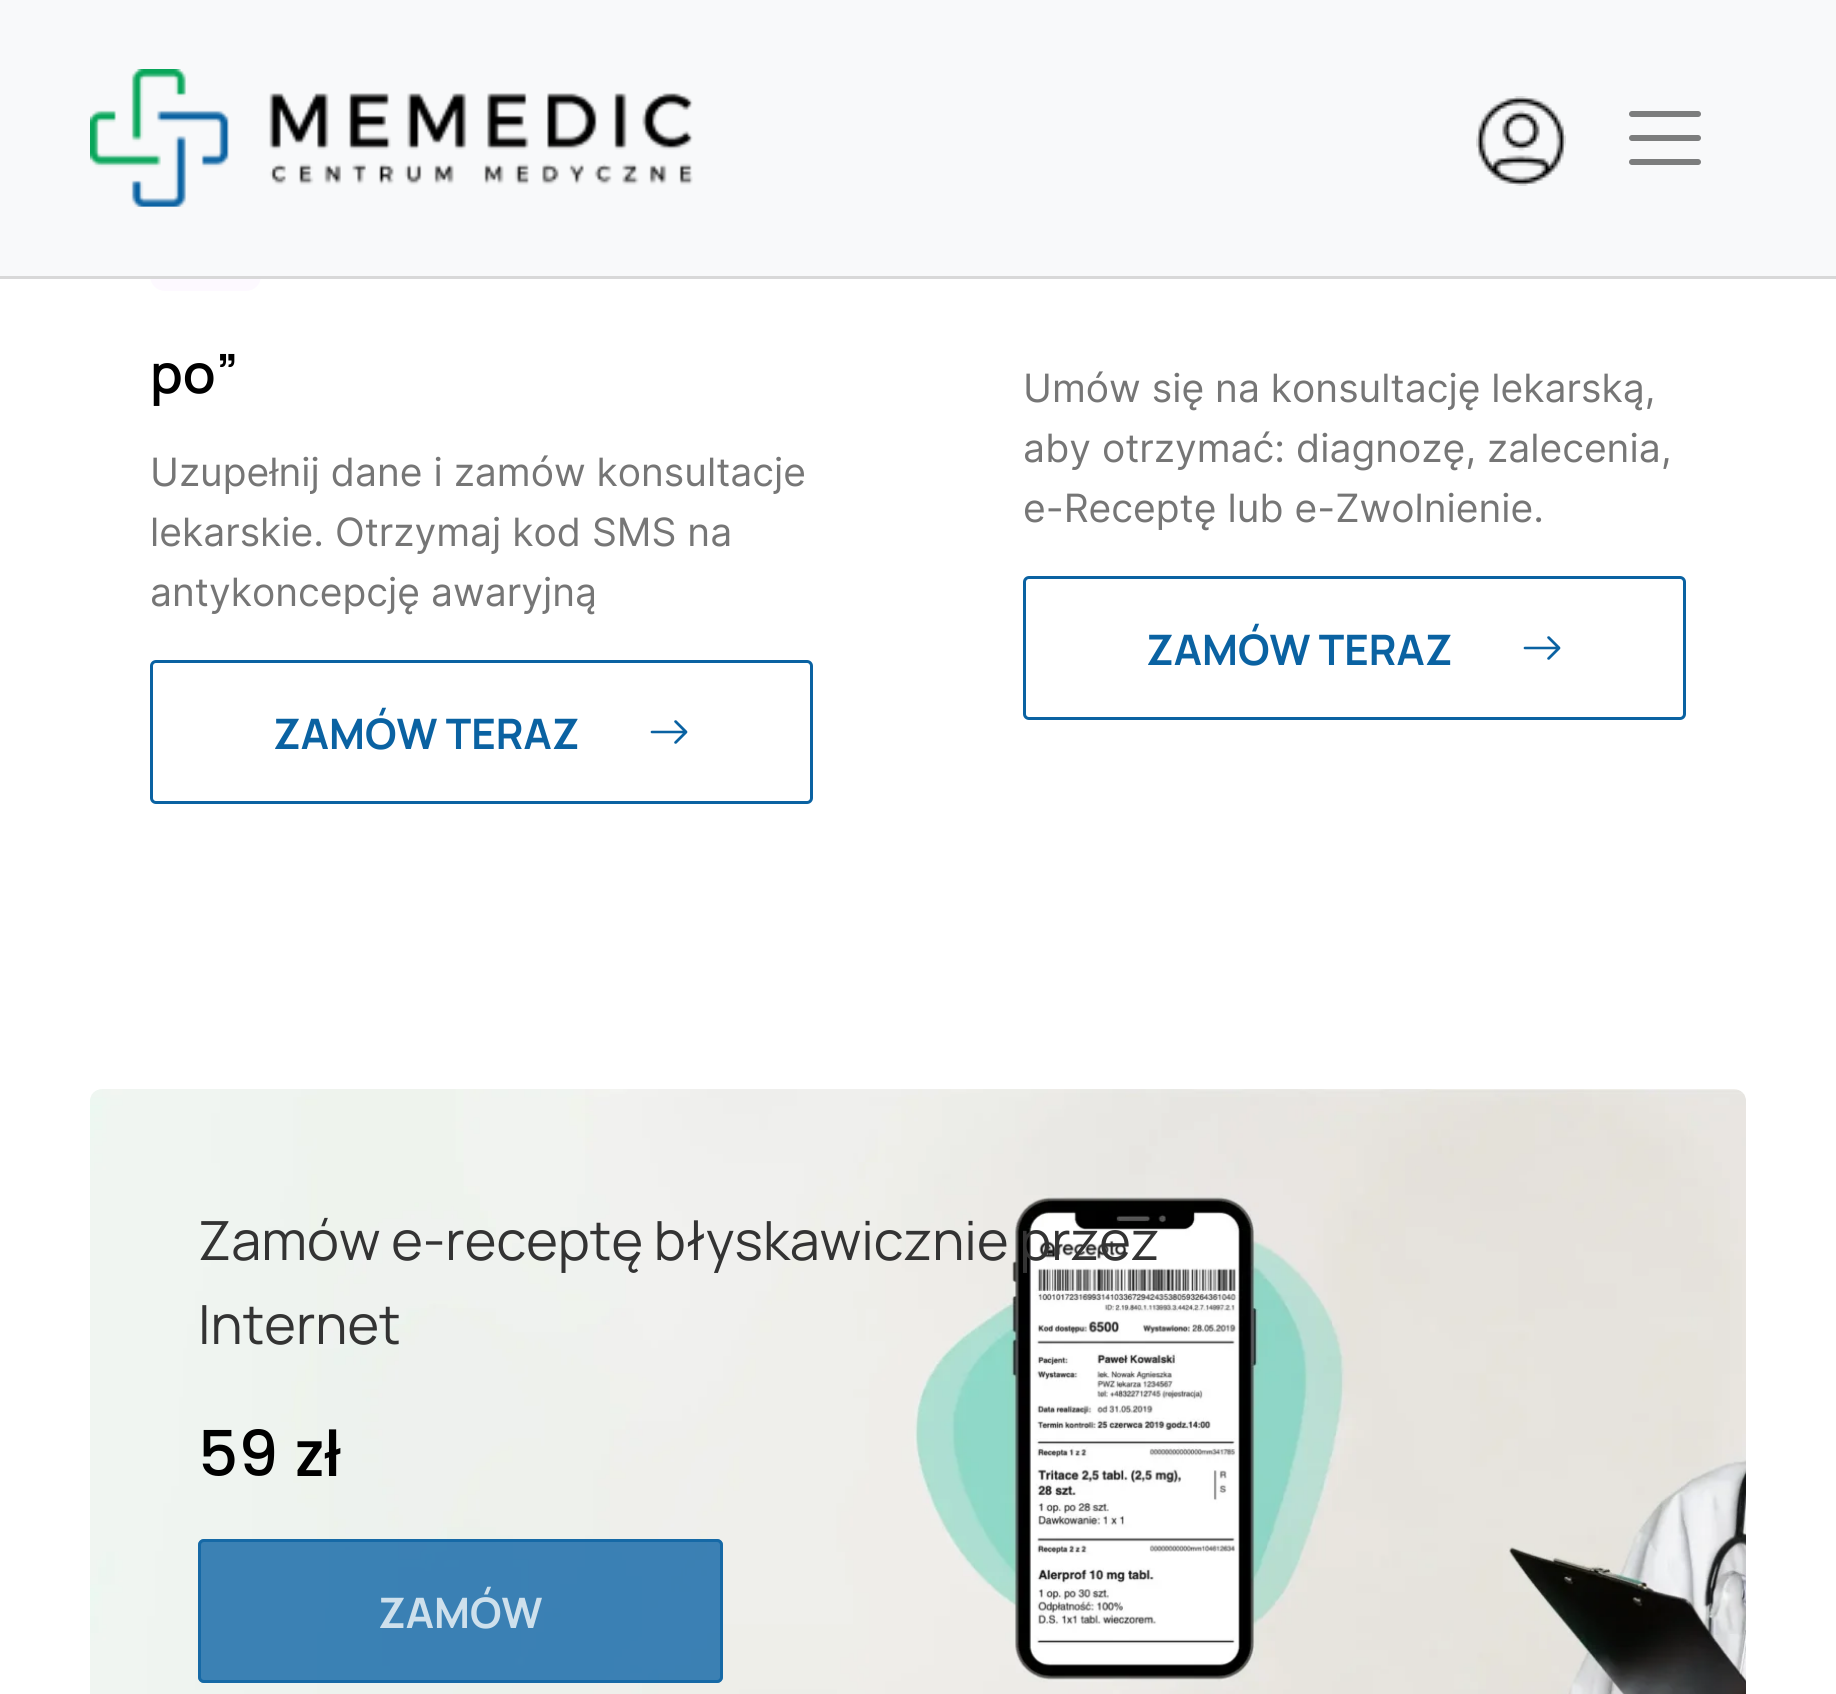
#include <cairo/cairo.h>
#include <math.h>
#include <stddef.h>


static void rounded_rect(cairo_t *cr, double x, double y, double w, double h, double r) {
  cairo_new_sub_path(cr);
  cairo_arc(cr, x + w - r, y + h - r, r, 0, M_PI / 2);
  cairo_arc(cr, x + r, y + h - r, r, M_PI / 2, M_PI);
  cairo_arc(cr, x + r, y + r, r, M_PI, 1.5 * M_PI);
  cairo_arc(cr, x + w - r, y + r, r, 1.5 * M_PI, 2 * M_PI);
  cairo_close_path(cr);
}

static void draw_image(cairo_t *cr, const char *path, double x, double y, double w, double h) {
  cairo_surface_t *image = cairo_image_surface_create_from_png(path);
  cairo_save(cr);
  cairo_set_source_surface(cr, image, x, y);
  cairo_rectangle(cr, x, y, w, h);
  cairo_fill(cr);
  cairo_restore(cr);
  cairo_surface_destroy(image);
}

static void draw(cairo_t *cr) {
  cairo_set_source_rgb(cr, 1, 1, 1);
  cairo_paint(cr);
  cairo_set_source_rgb(cr, 253 / 255.0, 249 / 255.0, 1);
  rounded_rect(cr, 150, 180, 111, 111, 15);
  cairo_fill(cr);
  cairo_set_source_rgb(cr, 248 / 255.0, 249 / 255.0, 250 / 255.0);
  cairo_rectangle(cr, 0, 0, 1836, 276);
  cairo_fill(cr);
  cairo_set_source_rgb(cr, 216 / 255.0, 216 / 255.0, 216 / 255.0);
  cairo_rectangle(cr, 0, 276, 1836, 3);
  cairo_fill(cr);
  draw_image(cr, "images/1.png", 90, 69, 603, 138);
  draw_image(cr, "images/2.png", 1476, 96, 90, 90);
  cairo_new_path(cr);
  cairo_move_to(cr, 1632, 114);
  cairo_line_to(cr, 1698, 114);
  cairo_move_to(cr, 1632, 138);
  cairo_line_to(cr, 1698, 138);
  cairo_move_to(cr, 1632, 162);
  cairo_line_to(cr, 1698, 162);
  cairo_set_source_rgb(cr, 124 / 255.0, 125 / 255.0, 125 / 255.0);
  cairo_set_line_width(cr, 6);
  cairo_set_line_cap(cr, CAIRO_LINE_CAP_ROUND);
  cairo_stroke(cr);
  rounded_rect(cr, 151.5, 661.5, 660, 141, 4.5);
  cairo_set_source_rgb(cr, 10 / 255.0, 98 / 255.0, 162 / 255.0);
  cairo_set_line_width(cr, 3);
  cairo_set_line_cap(cr, CAIRO_LINE_CAP_BUTT);
  cairo_stroke(cr);
  draw_image(cr, "images/3.png", 650, 720, 38, 24);
  rounded_rect(cr, 1024.5, 577.5, 660, 141, 4.5);
  cairo_stroke(cr);
  draw_image(cr, "images/3.png", 1523, 636, 38, 24);
  draw_image(cr, "images/4.png", 90, 1089, 1656, 605);
  cairo_set_source_rgba(cr, 12 / 255.0, 122 / 255.0, 202 / 255.0, 0.75);
  rounded_rect(cr, 198, 1539, 525, 144, 6);
  cairo_fill(cr);
  cairo_set_source_rgba(cr, 0, 0, 0, 0.15);
  rounded_rect(cr, 198, 1539, 525, 144, 6);
  cairo_fill(cr);
  rounded_rect(cr, 199.5, 1540.5, 522, 141, 4.5);
  cairo_set_source_rgba(cr, 10 / 255.0, 98 / 255.0, 162 / 255.0, 0.75);
  cairo_stroke(cr);
  cairo_select_font_face(cr, "Manrope SemiBold", CAIRO_FONT_SLANT_NORMAL, CAIRO_FONT_WEIGHT_NORMAL);
  cairo_set_font_size(cr, 54);
  cairo_set_source_rgb(cr, 0, 0, 0);
  cairo_move_to(cr, 150, 393);
  cairo_show_text(cr, "po”");
  cairo_select_font_face(cr, "Inter", CAIRO_FONT_SLANT_NORMAL, CAIRO_FONT_WEIGHT_NORMAL);
  cairo_set_font_size(cr, 39);
  cairo_set_source_rgb(cr, 118 / 255.0, 118 / 255.0, 118 / 255.0);
  cairo_move_to(cr, 150, 486);
  cairo_show_text(cr, "Uzupełnij dane i zamów konsultacje");
  cairo_move_to(cr, 150, 546);
  cairo_show_text(cr, "lekarskie. Otrzymaj kod SMS na");
  cairo_move_to(cr, 150, 606);
  cairo_show_text(cr, "antykoncepcję awaryjną");
  cairo_select_font_face(cr, "Manrope", CAIRO_FONT_SLANT_NORMAL, CAIRO_FONT_WEIGHT_BOLD);
  cairo_set_font_size(cr, 42);
  cairo_set_source_rgb(cr, 10 / 255.0, 98 / 255.0, 162 / 255.0);
  cairo_move_to(cr, 273, 749);
  cairo_show_text(cr, "ZAMÓW TERAZ");
  cairo_select_font_face(cr, "Inter", CAIRO_FONT_SLANT_NORMAL, CAIRO_FONT_WEIGHT_NORMAL);
  cairo_set_font_size(cr, 39);
  cairo_set_source_rgb(cr, 118 / 255.0, 118 / 255.0, 118 / 255.0);
  cairo_move_to(cr, 1023, 402);
  cairo_show_text(cr, "Umów się na konsultację lekarską,");
  cairo_move_to(cr, 1023, 462);
  cairo_show_text(cr, "aby otrzymać: diagnozę, zalecenia,");
  cairo_move_to(cr, 1023, 522);
  cairo_show_text(cr, "e-Receptę lub e-Zwolnienie.");
  cairo_select_font_face(cr, "Manrope", CAIRO_FONT_SLANT_NORMAL, CAIRO_FONT_WEIGHT_BOLD);
  cairo_set_font_size(cr, 42);
  cairo_set_source_rgb(cr, 10 / 255.0, 98 / 255.0, 162 / 255.0);
  cairo_move_to(cr, 1146, 665);
  cairo_show_text(cr, "ZAMÓW TERAZ");
  cairo_select_font_face(cr, "Manrope", CAIRO_FONT_SLANT_NORMAL, CAIRO_FONT_WEIGHT_NORMAL);
  cairo_set_font_size(cr, 54);
  cairo_set_source_rgb(cr, 51 / 255.0, 51 / 255.0, 51 / 255.0);
  cairo_move_to(cr, 198, 1260);
  cairo_show_text(cr, "Zamów e-receptę błyskawicznie przez");
  cairo_move_to(cr, 198, 1344);
  cairo_show_text(cr, "Internet");
  cairo_select_font_face(cr, "Poppins Medium", CAIRO_FONT_SLANT_NORMAL, CAIRO_FONT_WEIGHT_NORMAL);
  cairo_set_font_size(cr, 63);
  cairo_set_source_rgb(cr, 0, 0, 0);
  cairo_move_to(cr, 198, 1476);
  cairo_show_text(cr, "59 zł");
  cairo_select_font_face(cr, "Manrope", CAIRO_FONT_SLANT_NORMAL, CAIRO_FONT_WEIGHT_BOLD);
  cairo_set_font_size(cr, 42);
  cairo_set_source_rgb(cr, 206 / 255.0, 224 / 255.0, 236 / 255.0);
  cairo_move_to(cr, 378, 1628);
  cairo_show_text(cr, "ZAMÓW");
}

int main(void) {
  cairo_surface_t *surface = cairo_image_surface_create(CAIRO_FORMAT_RGB24, 1836, 1694);
  cairo_t *cr = cairo_create(surface);
  cairo_font_options_t *options = cairo_font_options_create();
  cairo_font_options_set_hint_metrics(options, CAIRO_HINT_METRICS_OFF);
  cairo_font_options_set_hint_style(options, CAIRO_HINT_STYLE_NONE);
  cairo_set_font_options(cr, options);
  cairo_set_miter_limit(cr, 4);
  draw(cr);
  cairo_surface_write_to_png(surface, "out.png");
  cairo_font_options_destroy(options);
  cairo_destroy(cr);
  cairo_surface_destroy(surface);
  return 0;
}
